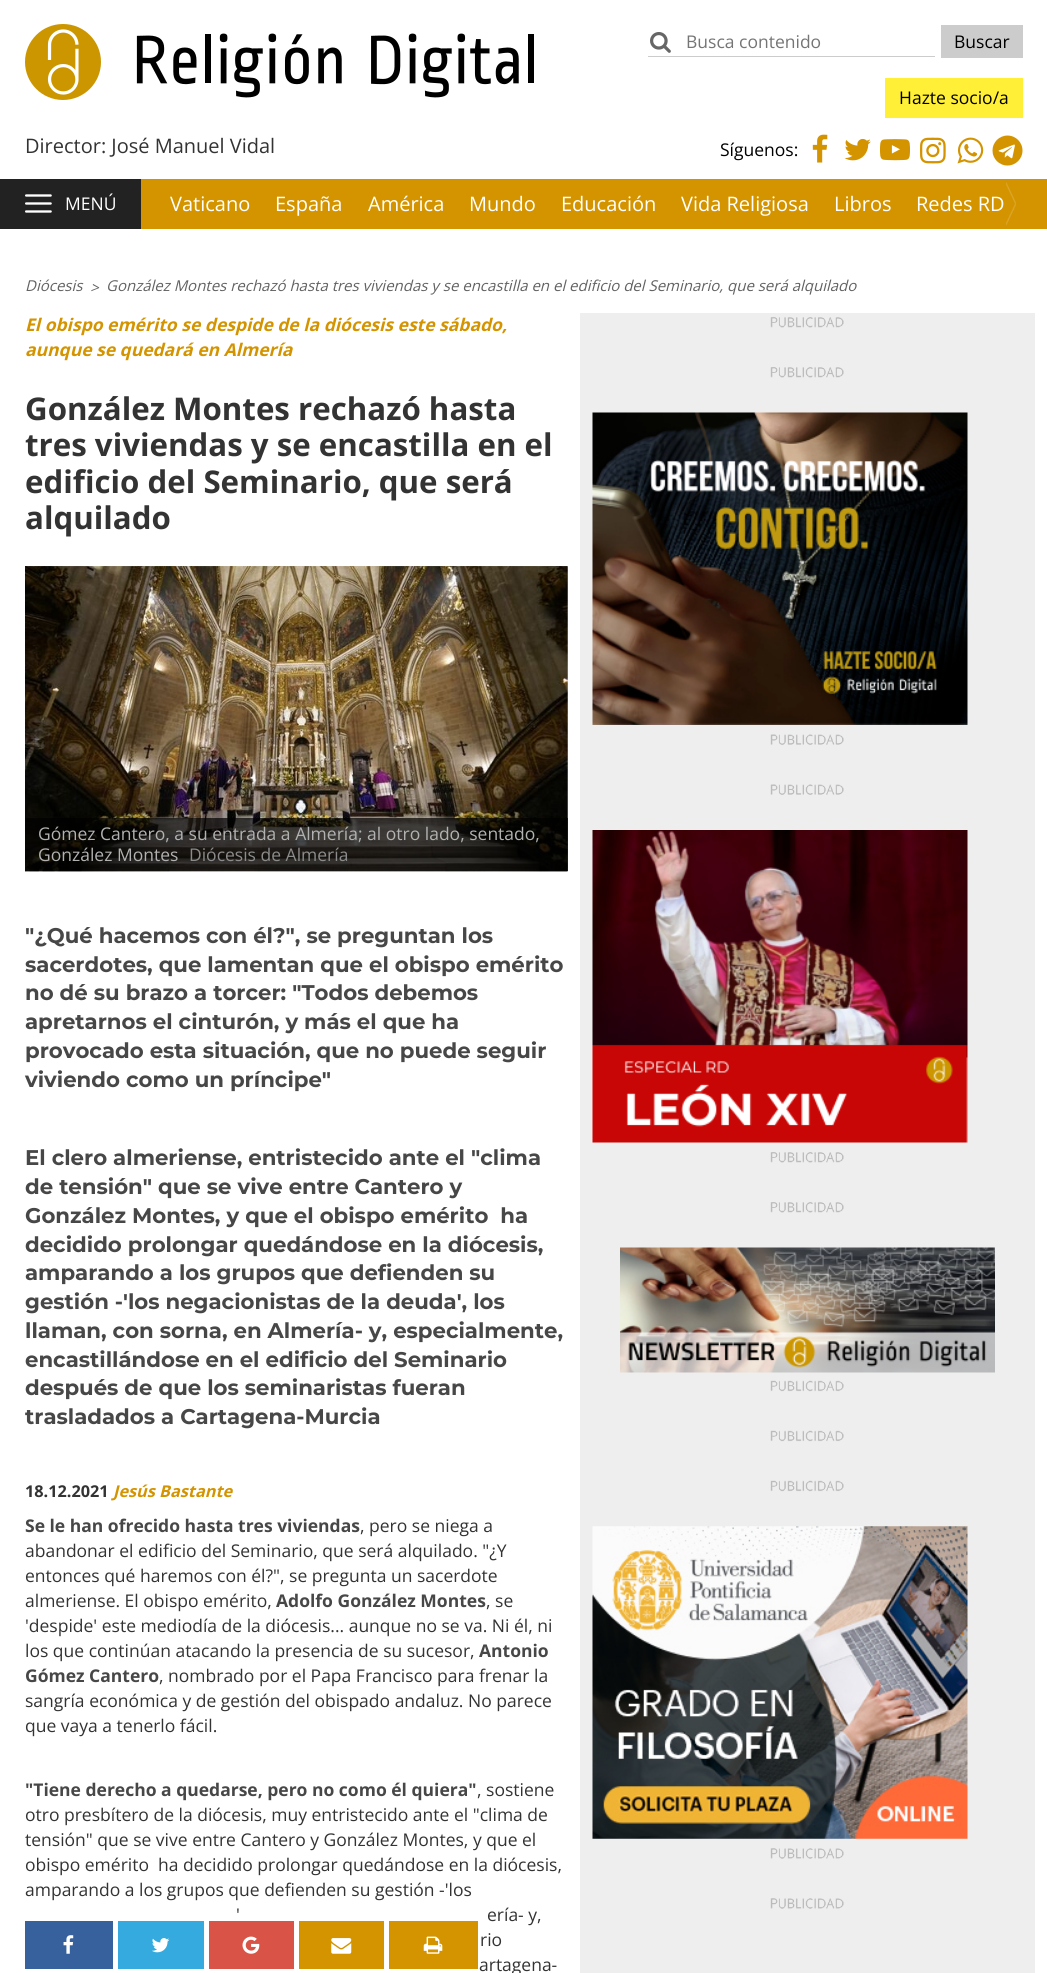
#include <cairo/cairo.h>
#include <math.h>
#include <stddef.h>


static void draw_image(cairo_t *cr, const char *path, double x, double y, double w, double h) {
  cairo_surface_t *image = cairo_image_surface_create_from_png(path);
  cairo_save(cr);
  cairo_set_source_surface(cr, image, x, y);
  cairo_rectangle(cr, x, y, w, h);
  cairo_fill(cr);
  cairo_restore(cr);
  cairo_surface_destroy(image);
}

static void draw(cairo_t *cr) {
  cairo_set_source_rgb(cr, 1, 1, 1);
  cairo_paint(cr);
  draw_image(cr, "images/1.png", 25, 24, 509, 76);
  draw_image(cr, "images/2.png", 650, 32, 21, 21);
  cairo_set_source_rgb(cr, 204 / 255.0, 204 / 255.0, 204 / 255.0);
  cairo_rectangle(cr, 648, 56, 287, 1);
  cairo_fill(cr);
  cairo_rectangle(cr, 941, 25, 82, 33);
  cairo_fill(cr);
  cairo_set_source_rgb(cr, 1, 239 / 255.0, 54 / 255.0);
  cairo_rectangle(cr, 885, 78, 138, 40);
  cairo_fill(cr);
  draw_image(cr, "images/3.png", 812, 134, 16, 29);
  draw_image(cr, "images/4.png", 844, 138, 27, 23);
  draw_image(cr, "images/5.png", 880, 139, 30, 22);
  draw_image(cr, "images/6.png", 920, 137, 26, 27);
  draw_image(cr, "images/7.png", 957, 137, 27, 27);
  draw_image(cr, "images/8.png", 992, 135, 31, 31);
  cairo_set_source_rgb(cr, 34 / 255.0, 34 / 255.0, 34 / 255.0);
  cairo_rectangle(cr, 0, 179, 141, 50);
  cairo_fill(cr);
  draw_image(cr, "images/9.png", 25, 194, 27, 19);
  cairo_set_source_rgb(cr, 212 / 255.0, 148 / 255.0, 0);
  cairo_rectangle(cr, 141, 179, 906, 50);
  cairo_fill(cr);
  draw_image(cr, "images/10.png", 1006, 182, 10, 43);
  cairo_set_source_rgb(cr, 245 / 255.0, 245 / 255.0, 245 / 255.0);
  cairo_rectangle(cr, 25, 566, 543, 305);
  cairo_fill(cr);
  draw_image(cr, "images/11.png", 25, 566, 543, 306);
  draw_image(cr, "images/12.png", 25, 566, 543, 306);
  cairo_set_source_rgba(cr, 0, 0, 0, 0.7);
  cairo_rectangle(cr, 25, 818, 543, 53);
  cairo_fill(cr);
  cairo_set_source_rgb(cr, 55 / 255.0, 97 / 255.0, 157 / 255.0);
  cairo_rectangle(cr, 25, 1921, 88, 48);
  cairo_fill(cr);
  draw_image(cr, "images/13.png", 63, 1935, 11, 19);
  cairo_set_source_rgb(cr, 52 / 255.0, 170 / 255.0, 222 / 255.0);
  cairo_rectangle(cr, 118, 1921, 86, 48);
  cairo_fill(cr);
  draw_image(cr, "images/14.png", 152, 1938, 18, 15);
  cairo_set_source_rgb(cr, 217 / 255.0, 84 / 255.0, 71 / 255.0);
  cairo_rectangle(cr, 209, 1921, 85, 48);
  cairo_fill(cr);
  draw_image(cr, "images/15.png", 242, 1936, 18, 18);
  cairo_set_source_rgb(cr, 212 / 255.0, 148 / 255.0, 0);
  cairo_rectangle(cr, 299, 1921, 85, 48);
  cairo_fill(cr);
  draw_image(cr, "images/16.png", 331, 1938, 21, 16);
  cairo_rectangle(cr, 389, 1921, 89, 48);
  cairo_fill(cr);
  draw_image(cr, "images/17.png", 423, 1936, 20, 18);
  cairo_set_source_rgb(cr, 238 / 255.0, 238 / 255.0, 238 / 255.0);
  cairo_rectangle(cr, 580, 313, 455, 1660);
  cairo_fill(cr);
  draw_image(cr, "images/18.png", 770, 317, 74, 11);
  draw_image(cr, "images/18.png", 770, 367, 74, 11);
  draw_image(cr, "images/19.png", 592, 412, 376, 313);
  draw_image(cr, "images/20.png", 770, 734, 74, 11);
  draw_image(cr, "images/21.png", 770, 784, 74, 11);
  draw_image(cr, "images/22.png", 592, 830, 376, 313);
  draw_image(cr, "images/18.png", 770, 1152, 74, 11);
  draw_image(cr, "images/18.png", 770, 1202, 74, 11);
  draw_image(cr, "images/23.png", 620, 1247, 375, 126);
  draw_image(cr, "images/24.png", 770, 1380, 74, 12);
  draw_image(cr, "images/24.png", 770, 1430, 74, 12);
  draw_image(cr, "images/24.png", 770, 1480, 74, 12);
  draw_image(cr, "images/25.png", 592, 1526, 376, 313);
  draw_image(cr, "images/26.png", 770, 1848, 74, 11);
  draw_image(cr, "images/26.png", 770, 1898, 74, 11);
  cairo_select_font_face(cr, "Open Sans", CAIRO_FONT_SLANT_NORMAL, CAIRO_FONT_WEIGHT_NORMAL);
  cairo_set_font_size(cr, 20);
  cairo_set_source_rgb(cr, 51 / 255.0, 51 / 255.0, 51 / 255.0);
  cairo_move_to(cr, 25, 153);
  cairo_show_text(cr, "Director: José Manuel Vidal");
  cairo_set_font_size(cr, 17.5);
  cairo_set_source_rgb(cr, 117 / 255.0, 117 / 255.0, 117 / 255.0);
  cairo_move_to(cr, 686, 48);
  cairo_show_text(cr, "Busca contenido");
  cairo_set_source_rgb(cr, 0, 0, 0);
  cairo_move_to(cr, 954, 48);
  cairo_show_text(cr, "Buscar");
  cairo_move_to(cr, 899, 104);
  cairo_show_text(cr, "Hazte socio/a");
  cairo_move_to(cr, 720, 156);
  cairo_show_text(cr, "Síguenos:");
  cairo_set_source_rgb(cr, 1, 1, 1);
  cairo_move_to(cr, 65, 210);
  cairo_show_text(cr, "MENÚ");
  cairo_set_font_size(cr, 20);
  cairo_move_to(cr, 170, 211);
  cairo_show_text(cr, "Vaticano");
  cairo_move_to(cr, 275, 211);
  cairo_show_text(cr, "España");
  cairo_move_to(cr, 368, 211);
  cairo_show_text(cr, "América");
  cairo_move_to(cr, 469, 211);
  cairo_show_text(cr, "Mundo");
  cairo_move_to(cr, 561, 211);
  cairo_show_text(cr, "Educación");
  cairo_move_to(cr, 681, 211);
  cairo_show_text(cr, "Vida Religiosa");
  cairo_move_to(cr, 834, 211);
  cairo_show_text(cr, "Libros");
  cairo_move_to(cr, 916, 211);
  cairo_show_text(cr, "Redes RD");
  cairo_select_font_face(cr, "Open Sans", CAIRO_FONT_SLANT_ITALIC, CAIRO_FONT_WEIGHT_NORMAL);
  cairo_set_font_size(cr, 15);
  cairo_set_source_rgb(cr, 98 / 255.0, 98 / 255.0, 98 / 255.0);
  cairo_move_to(cr, 25, 291);
  cairo_show_text(cr, "Diócesis");
  cairo_move_to(cr, 90, 293);
  cairo_show_text(cr, ">");
  cairo_move_to(cr, 106, 291);
  cairo_show_text(cr, "González Montes rechazó hasta tres viviendas y se encastilla en el edificio del Seminario, que será alquilado");
  cairo_select_font_face(cr, "Open Sans", CAIRO_FONT_SLANT_ITALIC, CAIRO_FONT_WEIGHT_BOLD);
  cairo_set_font_size(cr, 17.5);
  cairo_set_source_rgb(cr, 212 / 255.0, 148 / 255.0, 0);
  cairo_move_to(cr, 25, 331);
  cairo_show_text(cr, "El obispo emérito se despide de la diócesis este sábado,");
  cairo_move_to(cr, 25, 356);
  cairo_show_text(cr, "aunque se quedará en Almería");
  cairo_select_font_face(cr, "Open Sans", CAIRO_FONT_SLANT_NORMAL, CAIRO_FONT_WEIGHT_BOLD);
  cairo_set_font_size(cr, 31.25);
  cairo_set_source_rgb(cr, 51 / 255.0, 51 / 255.0, 51 / 255.0);
  cairo_move_to(cr, 25, 420);
  cairo_show_text(cr, "González Montes rechazó hasta");
  cairo_move_to(cr, 25, 456);
  cairo_show_text(cr, "tres viviendas y se encastilla en el");
  cairo_move_to(cr, 25, 493);
  cairo_show_text(cr, "edificio del Seminario, que será");
  cairo_move_to(cr, 25, 529);
  cairo_show_text(cr, "alquilado");
  cairo_select_font_face(cr, "Open Sans", CAIRO_FONT_SLANT_NORMAL, CAIRO_FONT_WEIGHT_NORMAL);
  cairo_set_font_size(cr, 17.5);
  cairo_set_source_rgb(cr, 178 / 255.0, 178 / 255.0, 178 / 255.0);
  cairo_move_to(cr, 38, 840);
  cairo_show_text(cr, "Gómez Cantero, a su entrada a Almería; al otro lado, sentado,");
  cairo_move_to(cr, 38, 861);
  cairo_show_text(cr, "González Montes");
  cairo_set_source_rgb(cr, 140 / 255.0, 140 / 255.0, 140 / 255.0);
  cairo_move_to(cr, 189, 861);
  cairo_show_text(cr, "Diócesis de Almería");
  cairo_select_font_face(cr, "Montserrat", CAIRO_FONT_SLANT_NORMAL, CAIRO_FONT_WEIGHT_BOLD);
  cairo_set_font_size(cr, 21.25);
  cairo_set_source_rgb(cr, 71 / 255.0, 71 / 255.0, 71 / 255.0);
  cairo_move_to(cr, 25, 943);
  cairo_show_text(cr, "\"¿Qué hacemos con él?\", se preguntan los");
  cairo_move_to(cr, 25, 972);
  cairo_show_text(cr, "sacerdotes, que lamentan que el obispo emérito");
  cairo_move_to(cr, 25, 1000);
  cairo_show_text(cr, "no dé su brazo a torcer: \"Todos debemos");
  cairo_move_to(cr, 25, 1029);
  cairo_show_text(cr, "apretarnos el cinturón, y más el que ha");
  cairo_move_to(cr, 25, 1058);
  cairo_show_text(cr, "provocado esta situación, que no puede seguir");
  cairo_move_to(cr, 25, 1087);
  cairo_show_text(cr, "viviendo como un príncipe\"");
  cairo_move_to(cr, 25, 1165);
  cairo_show_text(cr, "El clero almeriense, entristecido ante el \"clima");
  cairo_move_to(cr, 25, 1194);
  cairo_show_text(cr, "de tensión\" que se vive entre Cantero y");
  cairo_move_to(cr, 25, 1223);
  cairo_show_text(cr, "González Montes, y que el obispo emérito  ha");
  cairo_move_to(cr, 25, 1252);
  cairo_show_text(cr, "decidido prolongar quedándose en la diócesis,");
  cairo_move_to(cr, 25, 1280);
  cairo_show_text(cr, "amparando a los grupos que defienden su");
  cairo_move_to(cr, 25, 1309);
  cairo_show_text(cr, "gestión -'los negacionistas de la deuda', los");
  cairo_move_to(cr, 25, 1338);
  cairo_show_text(cr, "llaman, con sorna, en Almería- y, especialmente,");
  cairo_move_to(cr, 25, 1367);
  cairo_show_text(cr, "encastillándose en el edificio del Seminario");
  cairo_move_to(cr, 25, 1395);
  cairo_show_text(cr, "después de que los seminaristas fueran");
  cairo_move_to(cr, 25, 1424);
  cairo_show_text(cr, "trasladados a Cartagena-Murcia");
  cairo_select_font_face(cr, "Open Sans", CAIRO_FONT_SLANT_NORMAL, CAIRO_FONT_WEIGHT_BOLD);
  cairo_set_font_size(cr, 16.25);
  cairo_set_source_rgb(cr, 51 / 255.0, 51 / 255.0, 51 / 255.0);
  cairo_move_to(cr, 25, 1497);
  cairo_show_text(cr, "18.12.2021");
  cairo_select_font_face(cr, "Open Sans", CAIRO_FONT_SLANT_ITALIC, CAIRO_FONT_WEIGHT_BOLD);
  cairo_set_source_rgb(cr, 212 / 255.0, 148 / 255.0, 0);
  cairo_move_to(cr, 113, 1497);
  cairo_show_text(cr, "Jesús Bastante");
  cairo_select_font_face(cr, "Open Sans", CAIRO_FONT_SLANT_NORMAL, CAIRO_FONT_WEIGHT_BOLD);
  cairo_set_font_size(cr, 17.5);
  cairo_set_source_rgb(cr, 71 / 255.0, 71 / 255.0, 71 / 255.0);
  cairo_move_to(cr, 25, 1532);
  cairo_show_text(cr, "Se le han ofrecido hasta tres viviendas");
  cairo_select_font_face(cr, "Open Sans", CAIRO_FONT_SLANT_NORMAL, CAIRO_FONT_WEIGHT_NORMAL);
  cairo_set_source_rgb(cr, 51 / 255.0, 51 / 255.0, 51 / 255.0);
  cairo_move_to(cr, 360, 1532);
  cairo_show_text(cr, ", pero se niega a");
  cairo_move_to(cr, 25, 1557);
  cairo_show_text(cr, "abandonar el edificio del Seminario, que será alquilado. \"¿Y");
  cairo_move_to(cr, 25, 1582);
  cairo_show_text(cr, "entonces qué haremos con él?\", se pregunta un sacerdote");
  cairo_move_to(cr, 25, 1607);
  cairo_show_text(cr, "almeriense. El obispo emérito,");
  cairo_select_font_face(cr, "Open Sans", CAIRO_FONT_SLANT_NORMAL, CAIRO_FONT_WEIGHT_BOLD);
  cairo_set_source_rgb(cr, 71 / 255.0, 71 / 255.0, 71 / 255.0);
  cairo_move_to(cr, 276, 1607);
  cairo_show_text(cr, "Adolfo González Montes");
  cairo_select_font_face(cr, "Open Sans", CAIRO_FONT_SLANT_NORMAL, CAIRO_FONT_WEIGHT_NORMAL);
  cairo_set_source_rgb(cr, 51 / 255.0, 51 / 255.0, 51 / 255.0);
  cairo_move_to(cr, 486, 1607);
  cairo_show_text(cr, ", se");
  cairo_move_to(cr, 25, 1632);
  cairo_show_text(cr, "'despide' este mediodía de la diócesis... aunque no se va. Ni él, ni");
  cairo_move_to(cr, 25, 1657);
  cairo_show_text(cr, "los que continúan atacando la presencia de su sucesor,");
  cairo_select_font_face(cr, "Open Sans", CAIRO_FONT_SLANT_NORMAL, CAIRO_FONT_WEIGHT_BOLD);
  cairo_set_source_rgb(cr, 71 / 255.0, 71 / 255.0, 71 / 255.0);
  cairo_move_to(cr, 479, 1657);
  cairo_show_text(cr, "Antonio");
  cairo_move_to(cr, 25, 1682);
  cairo_show_text(cr, "Gómez Cantero");
  cairo_select_font_face(cr, "Open Sans", CAIRO_FONT_SLANT_NORMAL, CAIRO_FONT_WEIGHT_NORMAL);
  cairo_set_source_rgb(cr, 51 / 255.0, 51 / 255.0, 51 / 255.0);
  cairo_move_to(cr, 159, 1682);
  cairo_show_text(cr, ", nombrado por el Papa Francisco para frenar la");
  cairo_move_to(cr, 25, 1707);
  cairo_show_text(cr, "sangría económica y de gestión del obispado andaluz. No parece");
  cairo_move_to(cr, 25, 1732);
  cairo_show_text(cr, "que vaya a tenerlo fácil.");
  cairo_select_font_face(cr, "Open Sans", CAIRO_FONT_SLANT_NORMAL, CAIRO_FONT_WEIGHT_BOLD);
  cairo_set_source_rgb(cr, 71 / 255.0, 71 / 255.0, 71 / 255.0);
  cairo_move_to(cr, 25, 1796);
  cairo_show_text(cr, "\"Tiene derecho a quedarse, pero no como él quiera\"");
  cairo_select_font_face(cr, "Open Sans", CAIRO_FONT_SLANT_NORMAL, CAIRO_FONT_WEIGHT_NORMAL);
  cairo_set_source_rgb(cr, 51 / 255.0, 51 / 255.0, 51 / 255.0);
  cairo_move_to(cr, 477, 1796);
  cairo_show_text(cr, ", sostiene");
  cairo_move_to(cr, 25, 1821);
  cairo_show_text(cr, "otro presbítero de la diócesis, muy entristecido ante el \"clima de");
  cairo_move_to(cr, 25, 1846);
  cairo_show_text(cr, "tensión\" que se vive entre Cantero y González Montes, y que el");
  cairo_move_to(cr, 25, 1871);
  cairo_show_text(cr, "obispo emérito  ha decidido prolongar quedándose en la diócesis,");
  cairo_move_to(cr, 25, 1896);
  cairo_show_text(cr, "amparando a los grupos que defienden su gestión -'los");
  cairo_move_to(cr, 236, 1921);
  cairo_show_text(cr, "'");
  cairo_move_to(cr, 487, 1921);
  cairo_show_text(cr, "ería- y,");
  cairo_move_to(cr, 480, 1946);
  cairo_show_text(cr, "rio");
  cairo_move_to(cr, 479, 1971);
  cairo_show_text(cr, "artagena-");
}

int main(void) {
  cairo_surface_t *surface = cairo_image_surface_create(CAIRO_FORMAT_RGB24, 1047, 1973);
  cairo_t *cr = cairo_create(surface);
  cairo_font_options_t *options = cairo_font_options_create();
  cairo_font_options_set_hint_metrics(options, CAIRO_HINT_METRICS_OFF);
  cairo_font_options_set_hint_style(options, CAIRO_HINT_STYLE_NONE);
  cairo_set_font_options(cr, options);
  cairo_set_miter_limit(cr, 4);
  draw(cr);
  cairo_surface_write_to_png(surface, "out.png");
  cairo_font_options_destroy(options);
  cairo_destroy(cr);
  cairo_surface_destroy(surface);
  return 0;
}
